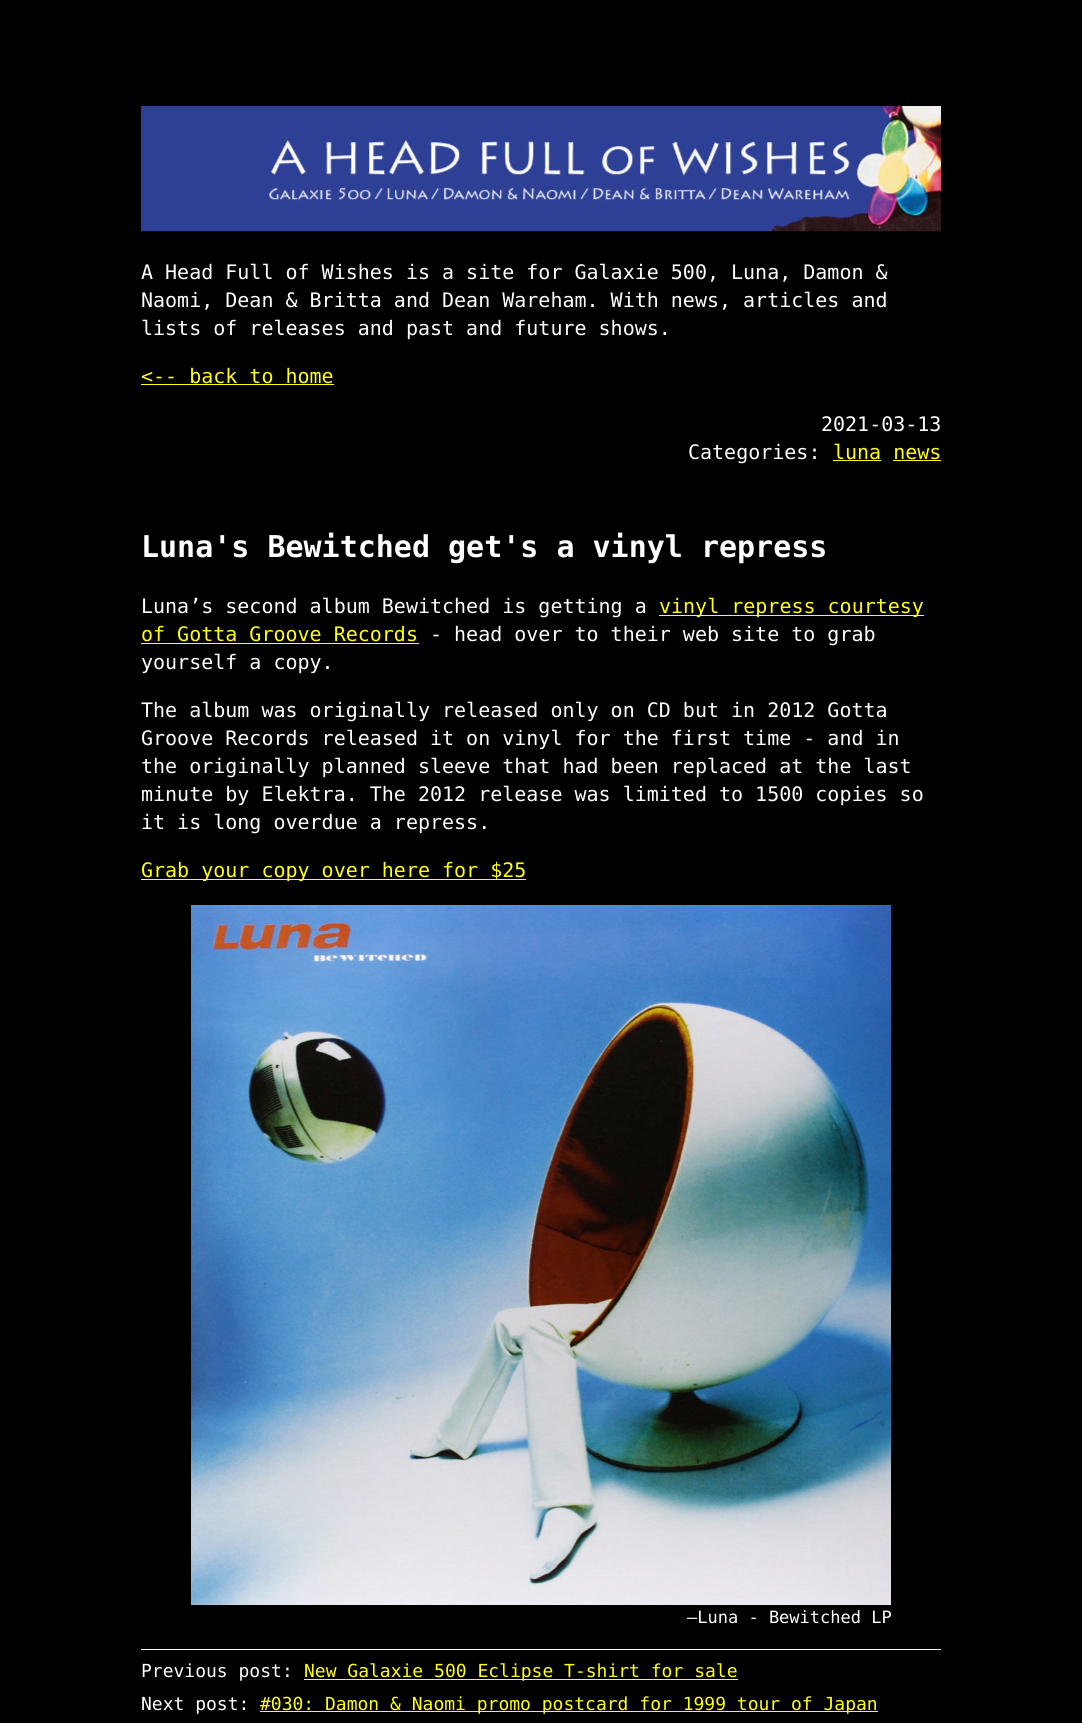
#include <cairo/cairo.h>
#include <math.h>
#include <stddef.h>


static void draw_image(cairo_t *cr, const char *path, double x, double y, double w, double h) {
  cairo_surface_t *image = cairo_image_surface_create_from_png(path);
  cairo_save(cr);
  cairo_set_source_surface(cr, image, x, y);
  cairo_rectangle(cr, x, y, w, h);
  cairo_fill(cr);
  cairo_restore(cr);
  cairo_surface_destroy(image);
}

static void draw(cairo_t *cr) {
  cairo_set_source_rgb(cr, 0, 0, 0);
  cairo_paint(cr);
  draw_image(cr, "images/1.png", 141, 106, 800, 126);
  cairo_set_source_rgb(cr, 1, 1, 17 / 255.0);
  cairo_rectangle(cr, 141, 384, 193, 1);
  cairo_fill(cr);
  cairo_rectangle(cr, 833, 460, 48, 1);
  cairo_fill(cr);
  cairo_rectangle(cr, 893, 460, 48, 1);
  cairo_fill(cr);
  cairo_rectangle(cr, 659, 615, 265, 1);
  cairo_fill(cr);
  cairo_rectangle(cr, 141, 643, 278, 1);
  cairo_fill(cr);
  cairo_rectangle(cr, 141, 879, 385, 1);
  cairo_fill(cr);
  draw_image(cr, "images/2.png", 191, 905, 700, 700);
  cairo_set_source_rgb(cr, 1, 1, 1);
  cairo_rectangle(cr, 141, 1649, 800, 1);
  cairo_fill(cr);
  cairo_set_source_rgb(cr, 1, 1, 17 / 255.0);
  cairo_rectangle(cr, 304, 1679, 434, 1);
  cairo_fill(cr);
  cairo_rectangle(cr, 260, 1711, 618, 1);
  cairo_fill(cr);
  cairo_select_font_face(cr, "DejaVu Sans Mono", CAIRO_FONT_SLANT_NORMAL, CAIRO_FONT_WEIGHT_NORMAL);
  cairo_set_font_size(cr, 20);
  cairo_set_source_rgb(cr, 1, 1, 1);
  cairo_move_to(cr, 141, 279);
  cairo_show_text(cr, "A Head Full of Wishes is a site for Galaxie 500, Luna, Damon &");
  cairo_move_to(cr, 141, 307);
  cairo_show_text(cr, "Naomi, Dean & Britta and Dean Wareham. With news, articles and");
  cairo_move_to(cr, 141, 335);
  cairo_show_text(cr, "lists of releases and past and future shows.");
  cairo_set_source_rgb(cr, 1, 1, 17 / 255.0);
  cairo_move_to(cr, 141, 383);
  cairo_show_text(cr, "<-- back to home");
  cairo_set_source_rgb(cr, 1, 1, 1);
  cairo_move_to(cr, 821, 431);
  cairo_show_text(cr, "2021-03-13");
  cairo_move_to(cr, 688, 459);
  cairo_show_text(cr, "Categories:");
  cairo_set_source_rgb(cr, 1, 1, 17 / 255.0);
  cairo_move_to(cr, 833, 459);
  cairo_show_text(cr, "luna news");
  cairo_select_font_face(cr, "DejaVu Sans Mono", CAIRO_FONT_SLANT_NORMAL, CAIRO_FONT_WEIGHT_BOLD);
  cairo_set_font_size(cr, 30);
  cairo_set_source_rgb(cr, 1, 1, 1);
  cairo_move_to(cr, 141, 557);
  cairo_show_text(cr, "Luna's Bewitched get's a vinyl repress");
  cairo_select_font_face(cr, "DejaVu Sans Mono", CAIRO_FONT_SLANT_NORMAL, CAIRO_FONT_WEIGHT_NORMAL);
  cairo_set_font_size(cr, 20);
  cairo_move_to(cr, 141, 613);
  cairo_show_text(cr, "Luna’s second album Bewitched is getting a");
  cairo_set_source_rgb(cr, 1, 1, 17 / 255.0);
  cairo_move_to(cr, 659, 613);
  cairo_show_text(cr, "vinyl repress courtesy");
  cairo_move_to(cr, 141, 641);
  cairo_show_text(cr, "of Gotta Groove Records");
  cairo_set_source_rgb(cr, 1, 1, 1);
  cairo_move_to(cr, 430, 641);
  cairo_show_text(cr, "- head over to their web site to grab");
  cairo_move_to(cr, 141, 669);
  cairo_show_text(cr, "yourself a copy.");
  cairo_move_to(cr, 141, 717);
  cairo_show_text(cr, "The album was originally released only on CD but in 2012 Gotta");
  cairo_move_to(cr, 141, 745);
  cairo_show_text(cr, "Groove Records released it on vinyl for the first time - and in");
  cairo_move_to(cr, 141, 773);
  cairo_show_text(cr, "the originally planned sleeve that had been replaced at the last");
  cairo_move_to(cr, 141, 801);
  cairo_show_text(cr, "minute by Elektra. The 2012 release was limited to 1500 copies so");
  cairo_move_to(cr, 141, 829);
  cairo_show_text(cr, "it is long overdue a repress.");
  cairo_set_source_rgb(cr, 1, 1, 17 / 255.0);
  cairo_move_to(cr, 141, 877);
  cairo_show_text(cr, "Grab your copy over here for $25");
  cairo_set_font_size(cr, 17);
  cairo_set_source_rgb(cr, 1, 1, 1);
  cairo_move_to(cr, 687, 1623);
  cairo_show_text(cr, "—Luna - Bewitched LP");
  cairo_set_font_size(cr, 18);
  cairo_move_to(cr, 141, 1677);
  cairo_show_text(cr, "Previous post:");
  cairo_set_source_rgb(cr, 1, 1, 17 / 255.0);
  cairo_move_to(cr, 304, 1677);
  cairo_show_text(cr, "New Galaxie 500 Eclipse T-shirt for sale");
  cairo_set_source_rgb(cr, 1, 1, 1);
  cairo_move_to(cr, 141, 1710);
  cairo_show_text(cr, "Next post:");
  cairo_set_source_rgb(cr, 1, 1, 17 / 255.0);
  cairo_move_to(cr, 260, 1710);
  cairo_show_text(cr, "#030: Damon & Naomi promo postcard for 1999 tour of Japan");
}

int main(void) {
  cairo_surface_t *surface = cairo_image_surface_create(CAIRO_FORMAT_RGB24, 1082, 1723);
  cairo_t *cr = cairo_create(surface);
  cairo_font_options_t *options = cairo_font_options_create();
  cairo_font_options_set_hint_metrics(options, CAIRO_HINT_METRICS_OFF);
  cairo_font_options_set_hint_style(options, CAIRO_HINT_STYLE_NONE);
  cairo_set_font_options(cr, options);
  cairo_set_miter_limit(cr, 4);
  draw(cr);
  cairo_surface_write_to_png(surface, "out.png");
  cairo_font_options_destroy(options);
  cairo_destroy(cr);
  cairo_surface_destroy(surface);
  return 0;
}
